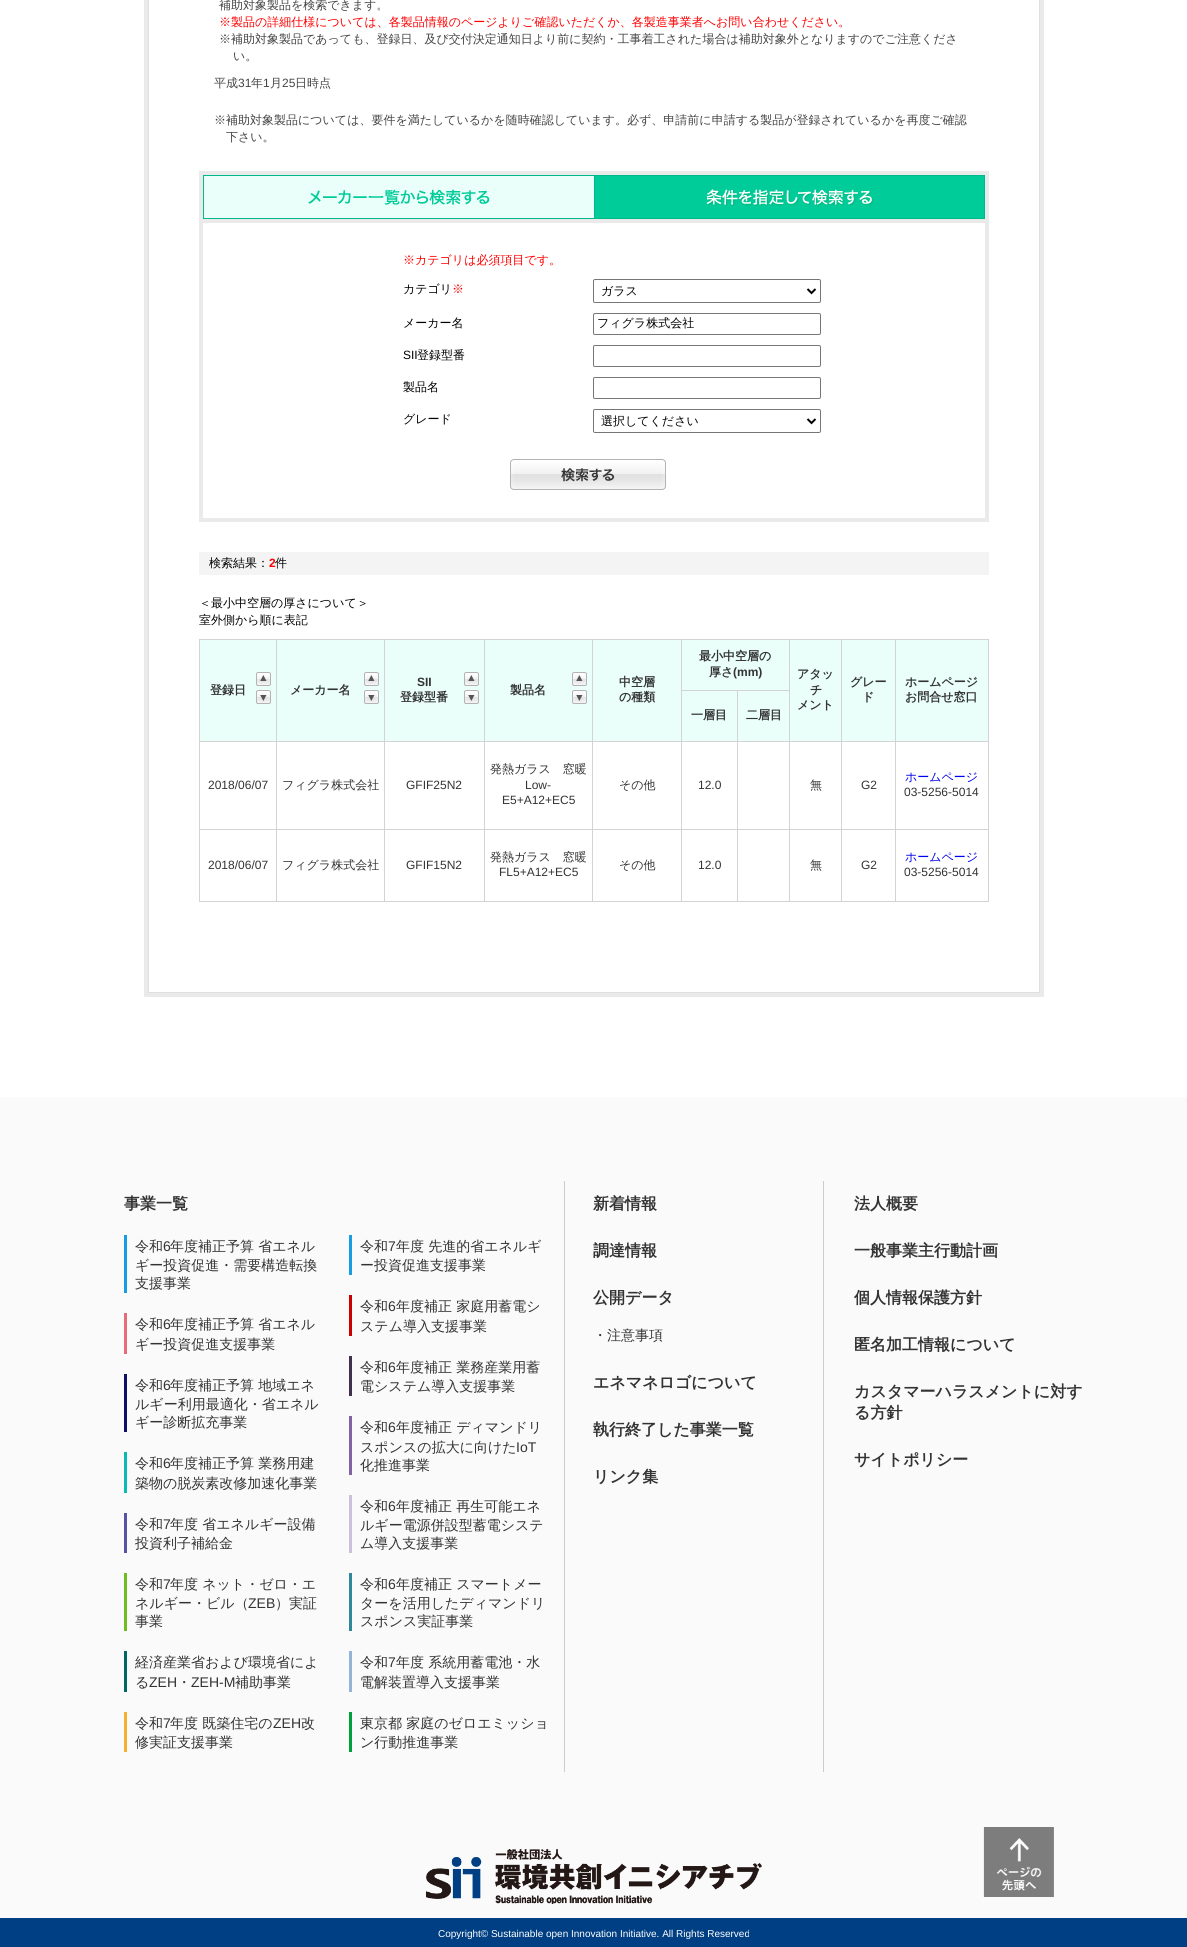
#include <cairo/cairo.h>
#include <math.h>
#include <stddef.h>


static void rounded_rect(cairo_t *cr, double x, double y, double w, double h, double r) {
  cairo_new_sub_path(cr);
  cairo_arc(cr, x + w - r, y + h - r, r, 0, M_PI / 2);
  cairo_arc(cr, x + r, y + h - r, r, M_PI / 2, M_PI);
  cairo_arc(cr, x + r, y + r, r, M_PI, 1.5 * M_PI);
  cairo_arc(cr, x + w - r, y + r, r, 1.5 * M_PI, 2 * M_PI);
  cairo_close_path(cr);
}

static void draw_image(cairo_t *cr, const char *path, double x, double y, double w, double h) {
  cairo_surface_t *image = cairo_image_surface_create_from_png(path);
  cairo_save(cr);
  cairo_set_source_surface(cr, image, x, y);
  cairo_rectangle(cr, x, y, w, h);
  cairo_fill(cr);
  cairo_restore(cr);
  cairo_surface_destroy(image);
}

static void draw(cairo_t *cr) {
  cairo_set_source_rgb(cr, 1, 1, 1);
  cairo_paint(cr);
  cairo_set_source_rgb(cr, 234 / 255.0, 234 / 255.0, 234 / 255.0);
  cairo_rectangle(cr, 144, 0, 900, 997);
  cairo_fill(cr);
  cairo_rectangle(cr, 148.5, -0.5, 891, 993);
  cairo_set_source_rgb(cr, 223 / 255.0, 223 / 255.0, 223 / 255.0);
  cairo_set_line_width(cr, 1);
  cairo_stroke(cr);
  cairo_set_source_rgb(cr, 1, 1, 1);
  cairo_rectangle(cr, 149, 0, 890, 992);
  cairo_fill(cr);
  cairo_set_source_rgb(cr, 234 / 255.0, 234 / 255.0, 234 / 255.0);
  cairo_rectangle(cr, 199, 171, 790, 4);
  cairo_fill(cr);
  cairo_rectangle(cr, 985, 171, 4, 48);
  cairo_fill(cr);
  cairo_rectangle(cr, 199, 171, 4, 48);
  cairo_fill(cr);
  draw_image(cr, "images/1.png", 203, 175, 392, 44);
  draw_image(cr, "images/2.png", 595, 175, 390, 44);
  cairo_rectangle(cr, 201, 221, 786, 299);
  cairo_set_line_width(cr, 4);
  cairo_stroke(cr);
  rounded_rect(cr, 593.5, 279.5, 227, 23, 1.5);
  cairo_set_source_rgb(cr, 118 / 255.0, 118 / 255.0, 118 / 255.0);
  cairo_set_line_width(cr, 1);
  cairo_stroke(cr);
  cairo_new_path(cr);
  cairo_move_to(cr, 807.5, 289);
  cairo_line_to(cr, 811.5, 293);
  cairo_line_to(cr, 815.5, 289);
  cairo_set_source_rgb(cr, 0, 0, 0);
  cairo_set_line_width(cr, 2);
  cairo_stroke(cr);
  rounded_rect(cr, 593.5, 313.5, 227, 21, 1.5);
  cairo_set_source_rgb(cr, 118 / 255.0, 118 / 255.0, 118 / 255.0);
  cairo_set_line_width(cr, 1);
  cairo_stroke(cr);
  rounded_rect(cr, 593.5, 345.5, 227, 21, 1.5);
  cairo_stroke(cr);
  rounded_rect(cr, 593.5, 377.5, 227, 21, 1.5);
  cairo_stroke(cr);
  rounded_rect(cr, 593.5, 409.5, 227, 23, 1.5);
  cairo_stroke(cr);
  cairo_new_path(cr);
  cairo_move_to(cr, 807.5, 419);
  cairo_line_to(cr, 811.5, 423);
  cairo_line_to(cr, 815.5, 419);
  cairo_set_source_rgb(cr, 0, 0, 0);
  cairo_set_line_width(cr, 2);
  cairo_stroke(cr);
  draw_image(cr, "images/3.png", 510, 459, 156, 31);
  cairo_set_source_rgb(cr, 244 / 255.0, 244 / 255.0, 244 / 255.0);
  cairo_rectangle(cr, 199, 552, 790, 23);
  cairo_fill(cr);
  cairo_set_source_rgb(cr, 211 / 255.0, 211 / 255.0, 211 / 255.0);
  cairo_rectangle(cr, 199, 639, 790, 1);
  cairo_fill(cr);
  cairo_rectangle(cr, 988, 639, 1, 263);
  cairo_fill(cr);
  cairo_set_source_rgb(cr, 234 / 255.0, 1, 250 / 255.0);
  cairo_rectangle(cr, 682, 640, 107, 50);
  cairo_fill(cr);
  cairo_set_source_rgb(cr, 211 / 255.0, 211 / 255.0, 211 / 255.0);
  cairo_rectangle(cr, 681, 690, 108, 1);
  cairo_fill(cr);
  cairo_rectangle(cr, 199, 741, 538, 1);
  cairo_fill(cr);
  cairo_rectangle(cr, 681, 640, 1, 102);
  cairo_fill(cr);
  cairo_set_source_rgb(cr, 234 / 255.0, 1, 250 / 255.0);
  cairo_rectangle(cr, 200, 640, 76, 101);
  cairo_fill(cr);
  cairo_set_source_rgb(cr, 211 / 255.0, 211 / 255.0, 211 / 255.0);
  cairo_rectangle(cr, 199, 640, 1, 102);
  cairo_fill(cr);
  draw_image(cr, "images/4.png", 256, 672, 15, 14);
  draw_image(cr, "images/5.png", 256, 690, 15, 14);
  cairo_set_source_rgb(cr, 234 / 255.0, 1, 250 / 255.0);
  cairo_rectangle(cr, 277, 640, 107, 101);
  cairo_fill(cr);
  cairo_set_source_rgb(cr, 211 / 255.0, 211 / 255.0, 211 / 255.0);
  cairo_rectangle(cr, 276, 640, 1, 102);
  cairo_fill(cr);
  draw_image(cr, "images/4.png", 364, 672, 15, 14);
  draw_image(cr, "images/5.png", 364, 690, 15, 14);
  cairo_set_source_rgb(cr, 234 / 255.0, 1, 250 / 255.0);
  cairo_rectangle(cr, 385, 640, 99, 101);
  cairo_fill(cr);
  cairo_set_source_rgb(cr, 211 / 255.0, 211 / 255.0, 211 / 255.0);
  cairo_rectangle(cr, 384, 640, 1, 102);
  cairo_fill(cr);
  draw_image(cr, "images/4.png", 464, 672, 15, 14);
  draw_image(cr, "images/5.png", 464, 690, 15, 14);
  cairo_set_source_rgb(cr, 234 / 255.0, 1, 250 / 255.0);
  cairo_rectangle(cr, 485, 640, 107, 101);
  cairo_fill(cr);
  cairo_set_source_rgb(cr, 211 / 255.0, 211 / 255.0, 211 / 255.0);
  cairo_rectangle(cr, 484, 640, 1, 102);
  cairo_fill(cr);
  draw_image(cr, "images/4.png", 572, 672, 15, 14);
  draw_image(cr, "images/5.png", 572, 690, 15, 14);
  cairo_set_source_rgb(cr, 234 / 255.0, 1, 250 / 255.0);
  cairo_rectangle(cr, 593, 640, 88, 101);
  cairo_fill(cr);
  cairo_set_source_rgb(cr, 211 / 255.0, 211 / 255.0, 211 / 255.0);
  cairo_rectangle(cr, 592, 640, 1, 102);
  cairo_fill(cr);
  cairo_set_source_rgb(cr, 234 / 255.0, 1, 250 / 255.0);
  cairo_rectangle(cr, 790, 640, 51, 101);
  cairo_fill(cr);
  cairo_set_source_rgb(cr, 211 / 255.0, 211 / 255.0, 211 / 255.0);
  cairo_rectangle(cr, 737, 741, 251, 1);
  cairo_fill(cr);
  cairo_rectangle(cr, 789, 640, 1, 102);
  cairo_fill(cr);
  cairo_set_source_rgb(cr, 234 / 255.0, 1, 250 / 255.0);
  cairo_rectangle(cr, 842, 640, 53, 101);
  cairo_fill(cr);
  cairo_set_source_rgb(cr, 211 / 255.0, 211 / 255.0, 211 / 255.0);
  cairo_rectangle(cr, 841, 640, 1, 102);
  cairo_fill(cr);
  cairo_set_source_rgb(cr, 234 / 255.0, 1, 250 / 255.0);
  cairo_rectangle(cr, 896, 640, 92, 101);
  cairo_fill(cr);
  cairo_set_source_rgb(cr, 211 / 255.0, 211 / 255.0, 211 / 255.0);
  cairo_rectangle(cr, 895, 640, 1, 102);
  cairo_fill(cr);
  cairo_set_source_rgb(cr, 234 / 255.0, 1, 250 / 255.0);
  cairo_rectangle(cr, 682, 691, 55, 50);
  cairo_fill(cr);
  cairo_rectangle(cr, 738, 691, 51, 50);
  cairo_fill(cr);
  cairo_set_source_rgb(cr, 211 / 255.0, 211 / 255.0, 211 / 255.0);
  cairo_rectangle(cr, 737, 691, 1, 51);
  cairo_fill(cr);
  cairo_rectangle(cr, 199, 829, 789, 1);
  cairo_fill(cr);
  cairo_rectangle(cr, 199, 742, 1, 88);
  cairo_fill(cr);
  cairo_rectangle(cr, 276, 742, 1, 88);
  cairo_fill(cr);
  cairo_rectangle(cr, 384, 742, 1, 88);
  cairo_fill(cr);
  cairo_rectangle(cr, 484, 742, 1, 88);
  cairo_fill(cr);
  cairo_rectangle(cr, 592, 742, 1, 88);
  cairo_fill(cr);
  cairo_rectangle(cr, 681, 742, 1, 88);
  cairo_fill(cr);
  cairo_rectangle(cr, 737, 742, 1, 88);
  cairo_fill(cr);
  cairo_rectangle(cr, 789, 742, 1, 88);
  cairo_fill(cr);
  cairo_rectangle(cr, 841, 742, 1, 88);
  cairo_fill(cr);
  cairo_rectangle(cr, 895, 742, 1, 88);
  cairo_fill(cr);
  cairo_rectangle(cr, 199, 901, 789, 1);
  cairo_fill(cr);
  cairo_rectangle(cr, 199, 830, 1, 72);
  cairo_fill(cr);
  cairo_rectangle(cr, 276, 830, 1, 72);
  cairo_fill(cr);
  cairo_rectangle(cr, 384, 830, 1, 72);
  cairo_fill(cr);
  cairo_rectangle(cr, 484, 830, 1, 72);
  cairo_fill(cr);
  cairo_rectangle(cr, 592, 830, 1, 72);
  cairo_fill(cr);
  cairo_rectangle(cr, 681, 830, 1, 72);
  cairo_fill(cr);
  cairo_rectangle(cr, 737, 830, 1, 72);
  cairo_fill(cr);
  cairo_rectangle(cr, 789, 830, 1, 72);
  cairo_fill(cr);
  cairo_rectangle(cr, 841, 830, 1, 72);
  cairo_fill(cr);
  cairo_rectangle(cr, 895, 830, 1, 72);
  cairo_fill(cr);
  cairo_set_source_rgb(cr, 250 / 255.0, 250 / 255.0, 250 / 255.0);
  cairo_rectangle(cr, 0, 1097, 1187, 821);
  cairo_fill(cr);
  cairo_set_source_rgb(cr, 204 / 255.0, 204 / 255.0, 204 / 255.0);
  cairo_rectangle(cr, 564, 1181, 1, 591);
  cairo_fill(cr);
  cairo_set_source_rgb(cr, 25 / 255.0, 157 / 255.0, 226 / 255.0);
  cairo_rectangle(cr, 124, 1235, 3, 58);
  cairo_fill(cr);
  cairo_set_source_rgb(cr, 230 / 255.0, 108 / 255.0, 121 / 255.0);
  cairo_rectangle(cr, 124, 1313, 3, 41);
  cairo_fill(cr);
  cairo_set_source_rgb(cr, 15 / 255.0, 15 / 255.0, 101 / 255.0);
  cairo_rectangle(cr, 124, 1374, 3, 58);
  cairo_fill(cr);
  cairo_set_source_rgb(cr, 10 / 255.0, 186 / 255.0, 181 / 255.0);
  cairo_rectangle(cr, 124, 1452, 3, 41);
  cairo_fill(cr);
  cairo_set_source_rgb(cr, 86 / 255.0, 84 / 255.0, 162 / 255.0);
  cairo_rectangle(cr, 124, 1513, 3, 40);
  cairo_fill(cr);
  cairo_set_source_rgb(cr, 110 / 255.0, 189 / 255.0, 33 / 255.0);
  cairo_rectangle(cr, 124, 1573, 3, 58);
  cairo_fill(cr);
  cairo_set_source_rgb(cr, 0, 102 / 255.0, 102 / 255.0);
  cairo_rectangle(cr, 124, 1651, 3, 41);
  cairo_fill(cr);
  cairo_set_source_rgb(cr, 244 / 255.0, 176 / 255.0, 46 / 255.0);
  cairo_rectangle(cr, 124, 1712, 3, 40);
  cairo_fill(cr);
  cairo_set_source_rgb(cr, 25 / 255.0, 157 / 255.0, 226 / 255.0);
  cairo_rectangle(cr, 349, 1235, 3, 40);
  cairo_fill(cr);
  cairo_set_source_rgb(cr, 204 / 255.0, 0, 0);
  cairo_rectangle(cr, 349, 1295, 3, 41);
  cairo_fill(cr);
  cairo_set_source_rgb(cr, 64 / 255.0, 49 / 255.0, 81 / 255.0);
  cairo_rectangle(cr, 349, 1356, 3, 40);
  cairo_fill(cr);
  cairo_set_source_rgb(cr, 128 / 255.0, 100 / 255.0, 162 / 255.0);
  cairo_rectangle(cr, 349, 1416, 3, 59);
  cairo_fill(cr);
  cairo_set_source_rgb(cr, 204 / 255.0, 192 / 255.0, 218 / 255.0);
  cairo_rectangle(cr, 349, 1495, 3, 58);
  cairo_fill(cr);
  cairo_set_source_rgb(cr, 49 / 255.0, 134 / 255.0, 155 / 255.0);
  cairo_rectangle(cr, 349, 1573, 3, 58);
  cairo_fill(cr);
  cairo_set_source_rgb(cr, 149 / 255.0, 179 / 255.0, 215 / 255.0);
  cairo_rectangle(cr, 349, 1651, 3, 41);
  cairo_fill(cr);
  cairo_set_source_rgb(cr, 0, 160 / 255.0, 60 / 255.0);
  cairo_rectangle(cr, 349, 1712, 3, 40);
  cairo_fill(cr);
  cairo_set_source_rgb(cr, 204 / 255.0, 204 / 255.0, 204 / 255.0);
  cairo_rectangle(cr, 823, 1181, 1, 591);
  cairo_fill(cr);
  draw_image(cr, "images/6.png", 426, 1849, 336, 55);
  cairo_set_source_rgb(cr, 0, 63 / 255.0, 131 / 255.0);
  cairo_rectangle(cr, 0, 1918, 1187, 29);
  cairo_fill(cr);
  draw_image(cr, "images/7.png", 983, 1827, 71, 70);
  cairo_select_font_face(cr, "WenQuanYi Zen Hei Medium", CAIRO_FONT_SLANT_NORMAL, CAIRO_FONT_WEIGHT_NORMAL);
  cairo_set_font_size(cr, 12);
  cairo_set_source_rgb(cr, 68 / 255.0, 68 / 255.0, 68 / 255.0);
  cairo_move_to(cr, 219, 9);
  cairo_show_text(cr, "補助対象製品を検索できます。");
  cairo_set_source_rgb(cr, 1, 0, 0);
  cairo_move_to(cr, 219, 26);
  cairo_show_text(cr, "※製品の詳細仕様については、各製品情報のページよりご確認いただくか、各製造事業者へお問い合わせください。");
  cairo_set_source_rgb(cr, 68 / 255.0, 68 / 255.0, 68 / 255.0);
  cairo_move_to(cr, 219, 43);
  cairo_show_text(cr, "※補助対象製品であっても、登録日、及び交付決定通知日より前に契約・工事着工された場合は補助対象外となりますのでご注意くださ");
  cairo_move_to(cr, 233, 60);
  cairo_show_text(cr, "い。");
  cairo_move_to(cr, 214, 87);
  cairo_show_text(cr, "平成");
  cairo_select_font_face(cr, "Liberation Sans", CAIRO_FONT_SLANT_NORMAL, CAIRO_FONT_WEIGHT_NORMAL);
  cairo_move_to(cr, 238, 87);
  cairo_show_text(cr, "31");
  cairo_select_font_face(cr, "WenQuanYi Zen Hei Medium", CAIRO_FONT_SLANT_NORMAL, CAIRO_FONT_WEIGHT_NORMAL);
  cairo_move_to(cr, 251, 87);
  cairo_show_text(cr, "年");
  cairo_select_font_face(cr, "Liberation Sans", CAIRO_FONT_SLANT_NORMAL, CAIRO_FONT_WEIGHT_NORMAL);
  cairo_move_to(cr, 263, 87);
  cairo_show_text(cr, "1");
  cairo_select_font_face(cr, "WenQuanYi Zen Hei Medium", CAIRO_FONT_SLANT_NORMAL, CAIRO_FONT_WEIGHT_NORMAL);
  cairo_move_to(cr, 270, 87);
  cairo_show_text(cr, "月");
  cairo_select_font_face(cr, "Liberation Sans", CAIRO_FONT_SLANT_NORMAL, CAIRO_FONT_WEIGHT_NORMAL);
  cairo_move_to(cr, 282, 87);
  cairo_show_text(cr, "25");
  cairo_select_font_face(cr, "WenQuanYi Zen Hei Medium", CAIRO_FONT_SLANT_NORMAL, CAIRO_FONT_WEIGHT_NORMAL);
  cairo_move_to(cr, 295, 87);
  cairo_show_text(cr, "日時点");
  cairo_move_to(cr, 214, 124);
  cairo_show_text(cr, "※補助対象製品については、要件を満たしているかを随時確認しています。必ず、申請前に申請する製品が登録されているかを再度ご確認");
  cairo_move_to(cr, 226, 141);
  cairo_show_text(cr, "下さい。");
  cairo_set_source_rgb(cr, 1, 0, 0);
  cairo_move_to(cr, 403, 264);
  cairo_show_text(cr, "※カテゴリは必須項目です。");
  cairo_set_source_rgb(cr, 0, 0, 0);
  cairo_move_to(cr, 403, 293);
  cairo_show_text(cr, "カテゴリ");
  cairo_set_source_rgb(cr, 1, 0, 0);
  cairo_move_to(cr, 452, 293);
  cairo_show_text(cr, "※");
  cairo_set_source_rgb(cr, 0, 0, 0);
  cairo_move_to(cr, 601, 295);
  cairo_show_text(cr, "ガラス");
  cairo_move_to(cr, 403, 327);
  cairo_show_text(cr, "メーカー名");
  cairo_move_to(cr, 597, 327);
  cairo_show_text(cr, "フィグラ株式会社");
  cairo_select_font_face(cr, "Liberation Sans", CAIRO_FONT_SLANT_NORMAL, CAIRO_FONT_WEIGHT_NORMAL);
  cairo_move_to(cr, 403, 359);
  cairo_show_text(cr, "SII");
  cairo_select_font_face(cr, "WenQuanYi Zen Hei Medium", CAIRO_FONT_SLANT_NORMAL, CAIRO_FONT_WEIGHT_NORMAL);
  cairo_move_to(cr, 417, 359);
  cairo_show_text(cr, "登録型番");
  cairo_move_to(cr, 403, 391);
  cairo_show_text(cr, "製品名");
  cairo_move_to(cr, 403, 423);
  cairo_show_text(cr, "グレード");
  cairo_move_to(cr, 601, 425);
  cairo_show_text(cr, "選択してください");
  cairo_move_to(cr, 209, 567);
  cairo_show_text(cr, "検索結果：");
  cairo_select_font_face(cr, "Liberation Sans", CAIRO_FONT_SLANT_NORMAL, CAIRO_FONT_WEIGHT_BOLD);
  cairo_set_source_rgb(cr, 1, 0, 0);
  cairo_move_to(cr, 269, 567);
  cairo_show_text(cr, "2");
  cairo_select_font_face(cr, "WenQuanYi Zen Hei Medium", CAIRO_FONT_SLANT_NORMAL, CAIRO_FONT_WEIGHT_NORMAL);
  cairo_set_source_rgb(cr, 0, 0, 0);
  cairo_move_to(cr, 275, 567);
  cairo_show_text(cr, "件");
  cairo_move_to(cr, 199, 607);
  cairo_show_text(cr, "＜最小中空層の厚さについて＞");
  cairo_move_to(cr, 199, 624);
  cairo_show_text(cr, "室外側から順に表記");
  cairo_select_font_face(cr, "WenQuanYi Zen Hei", CAIRO_FONT_SLANT_NORMAL, CAIRO_FONT_WEIGHT_BOLD);
  cairo_set_source_rgb(cr, 51 / 255.0, 51 / 255.0, 51 / 255.0);
  cairo_move_to(cr, 699, 660);
  cairo_show_text(cr, "最小中空層の");
  cairo_move_to(cr, 709, 676);
  cairo_show_text(cr, "厚さ");
  cairo_select_font_face(cr, "Liberation Sans", CAIRO_FONT_SLANT_NORMAL, CAIRO_FONT_WEIGHT_BOLD);
  cairo_move_to(cr, 733, 676);
  cairo_show_text(cr, "(mm)");
  cairo_select_font_face(cr, "WenQuanYi Zen Hei", CAIRO_FONT_SLANT_NORMAL, CAIRO_FONT_WEIGHT_BOLD);
  cairo_move_to(cr, 210, 694);
  cairo_show_text(cr, "登録日");
  cairo_move_to(cr, 290, 694);
  cairo_show_text(cr, "メーカー名");
  cairo_select_font_face(cr, "Liberation Sans", CAIRO_FONT_SLANT_NORMAL, CAIRO_FONT_WEIGHT_BOLD);
  cairo_move_to(cr, 417, 686);
  cairo_show_text(cr, "SII");
  cairo_select_font_face(cr, "WenQuanYi Zen Hei", CAIRO_FONT_SLANT_NORMAL, CAIRO_FONT_WEIGHT_BOLD);
  cairo_move_to(cr, 400, 701);
  cairo_show_text(cr, "登録型番");
  cairo_move_to(cr, 510, 694);
  cairo_show_text(cr, "製品名");
  cairo_move_to(cr, 619, 686);
  cairo_show_text(cr, "中空層");
  cairo_move_to(cr, 619, 701);
  cairo_show_text(cr, "の種類");
  cairo_move_to(cr, 797, 678);
  cairo_show_text(cr, "アタッ");
  cairo_move_to(cr, 810, 694);
  cairo_show_text(cr, "チ");
  cairo_move_to(cr, 797, 709);
  cairo_show_text(cr, "メント");
  cairo_move_to(cr, 850, 686);
  cairo_show_text(cr, "グレー");
  cairo_move_to(cr, 862, 701);
  cairo_show_text(cr, "ド");
  cairo_move_to(cr, 905, 686);
  cairo_show_text(cr, "ホームページ");
  cairo_move_to(cr, 905, 701);
  cairo_show_text(cr, "お問合せ窓口");
  cairo_move_to(cr, 691, 719);
  cairo_show_text(cr, "一層目");
  cairo_move_to(cr, 746, 719);
  cairo_show_text(cr, "二層目");
  cairo_select_font_face(cr, "Liberation Sans", CAIRO_FONT_SLANT_NORMAL, CAIRO_FONT_WEIGHT_NORMAL);
  cairo_move_to(cr, 208, 789);
  cairo_show_text(cr, "2018/06/07");
  cairo_select_font_face(cr, "WenQuanYi Zen Hei Medium", CAIRO_FONT_SLANT_NORMAL, CAIRO_FONT_WEIGHT_NORMAL);
  cairo_move_to(cr, 282, 789);
  cairo_show_text(cr, "フィグラ株式会社");
  cairo_select_font_face(cr, "Liberation Sans", CAIRO_FONT_SLANT_NORMAL, CAIRO_FONT_WEIGHT_NORMAL);
  cairo_move_to(cr, 406, 789);
  cairo_show_text(cr, "GFIF25N2");
  cairo_select_font_face(cr, "WenQuanYi Zen Hei Medium", CAIRO_FONT_SLANT_NORMAL, CAIRO_FONT_WEIGHT_NORMAL);
  cairo_move_to(cr, 490, 773);
  cairo_show_text(cr, "発熱ガラス　窓暖");
  cairo_select_font_face(cr, "Liberation Sans", CAIRO_FONT_SLANT_NORMAL, CAIRO_FONT_WEIGHT_NORMAL);
  cairo_move_to(cr, 525, 789);
  cairo_show_text(cr, "Low-");
  cairo_move_to(cr, 502, 804);
  cairo_show_text(cr, "E5+A12+EC5");
  cairo_select_font_face(cr, "WenQuanYi Zen Hei Medium", CAIRO_FONT_SLANT_NORMAL, CAIRO_FONT_WEIGHT_NORMAL);
  cairo_move_to(cr, 619, 789);
  cairo_show_text(cr, "その他");
  cairo_select_font_face(cr, "Liberation Sans", CAIRO_FONT_SLANT_NORMAL, CAIRO_FONT_WEIGHT_NORMAL);
  cairo_move_to(cr, 698, 789);
  cairo_show_text(cr, "12.0");
  cairo_select_font_face(cr, "WenQuanYi Zen Hei Medium", CAIRO_FONT_SLANT_NORMAL, CAIRO_FONT_WEIGHT_NORMAL);
  cairo_move_to(cr, 810, 789);
  cairo_show_text(cr, "無");
  cairo_select_font_face(cr, "Liberation Sans", CAIRO_FONT_SLANT_NORMAL, CAIRO_FONT_WEIGHT_NORMAL);
  cairo_move_to(cr, 861, 789);
  cairo_show_text(cr, "G2");
  cairo_select_font_face(cr, "WenQuanYi Zen Hei Medium", CAIRO_FONT_SLANT_NORMAL, CAIRO_FONT_WEIGHT_NORMAL);
  cairo_set_source_rgb(cr, 0, 0, 238 / 255.0);
  cairo_move_to(cr, 905, 781);
  cairo_show_text(cr, "ホームページ");
  cairo_select_font_face(cr, "Liberation Sans", CAIRO_FONT_SLANT_NORMAL, CAIRO_FONT_WEIGHT_NORMAL);
  cairo_set_source_rgb(cr, 51 / 255.0, 51 / 255.0, 51 / 255.0);
  cairo_move_to(cr, 904, 796);
  cairo_show_text(cr, "03-5256-5014");
  cairo_move_to(cr, 208, 869);
  cairo_show_text(cr, "2018/06/07");
  cairo_select_font_face(cr, "WenQuanYi Zen Hei Medium", CAIRO_FONT_SLANT_NORMAL, CAIRO_FONT_WEIGHT_NORMAL);
  cairo_move_to(cr, 282, 869);
  cairo_show_text(cr, "フィグラ株式会社");
  cairo_select_font_face(cr, "Liberation Sans", CAIRO_FONT_SLANT_NORMAL, CAIRO_FONT_WEIGHT_NORMAL);
  cairo_move_to(cr, 406, 869);
  cairo_show_text(cr, "GFIF15N2");
  cairo_select_font_face(cr, "WenQuanYi Zen Hei Medium", CAIRO_FONT_SLANT_NORMAL, CAIRO_FONT_WEIGHT_NORMAL);
  cairo_move_to(cr, 490, 861);
  cairo_show_text(cr, "発熱ガラス　窓暖");
  cairo_select_font_face(cr, "Liberation Sans", CAIRO_FONT_SLANT_NORMAL, CAIRO_FONT_WEIGHT_NORMAL);
  cairo_move_to(cr, 499, 876);
  cairo_show_text(cr, "FL5+A12+EC5");
  cairo_select_font_face(cr, "WenQuanYi Zen Hei Medium", CAIRO_FONT_SLANT_NORMAL, CAIRO_FONT_WEIGHT_NORMAL);
  cairo_move_to(cr, 619, 869);
  cairo_show_text(cr, "その他");
  cairo_select_font_face(cr, "Liberation Sans", CAIRO_FONT_SLANT_NORMAL, CAIRO_FONT_WEIGHT_NORMAL);
  cairo_move_to(cr, 698, 869);
  cairo_show_text(cr, "12.0");
  cairo_select_font_face(cr, "WenQuanYi Zen Hei Medium", CAIRO_FONT_SLANT_NORMAL, CAIRO_FONT_WEIGHT_NORMAL);
  cairo_move_to(cr, 810, 869);
  cairo_show_text(cr, "無");
  cairo_select_font_face(cr, "Liberation Sans", CAIRO_FONT_SLANT_NORMAL, CAIRO_FONT_WEIGHT_NORMAL);
  cairo_move_to(cr, 861, 869);
  cairo_show_text(cr, "G2");
  cairo_select_font_face(cr, "WenQuanYi Zen Hei Medium", CAIRO_FONT_SLANT_NORMAL, CAIRO_FONT_WEIGHT_NORMAL);
  cairo_set_source_rgb(cr, 0, 0, 238 / 255.0);
  cairo_move_to(cr, 905, 861);
  cairo_show_text(cr, "ホームページ");
  cairo_select_font_face(cr, "Liberation Sans", CAIRO_FONT_SLANT_NORMAL, CAIRO_FONT_WEIGHT_NORMAL);
  cairo_set_source_rgb(cr, 51 / 255.0, 51 / 255.0, 51 / 255.0);
  cairo_move_to(cr, 904, 876);
  cairo_show_text(cr, "03-5256-5014");
  cairo_select_font_face(cr, "WenQuanYi Zen Hei", CAIRO_FONT_SLANT_NORMAL, CAIRO_FONT_WEIGHT_BOLD);
  cairo_set_font_size(cr, 16);
  cairo_move_to(cr, 124, 1209);
  cairo_show_text(cr, "事業一覧");
  cairo_select_font_face(cr, "WenQuanYi Zen Hei Medium", CAIRO_FONT_SLANT_NORMAL, CAIRO_FONT_WEIGHT_NORMAL);
  cairo_set_font_size(cr, 14);
  cairo_move_to(cr, 135, 1251);
  cairo_show_text(cr, "令和");
  cairo_select_font_face(cr, "Liberation Sans", CAIRO_FONT_SLANT_NORMAL, CAIRO_FONT_WEIGHT_NORMAL);
  cairo_move_to(cr, 163, 1251);
  cairo_show_text(cr, "6");
  cairo_select_font_face(cr, "WenQuanYi Zen Hei Medium", CAIRO_FONT_SLANT_NORMAL, CAIRO_FONT_WEIGHT_NORMAL);
  cairo_move_to(cr, 170, 1251);
  cairo_show_text(cr, "年度補正予算 省エネル");
  cairo_move_to(cr, 135, 1270);
  cairo_show_text(cr, "ギー投資促進・需要構造転換");
  cairo_move_to(cr, 135, 1288);
  cairo_show_text(cr, "支援事業");
  cairo_move_to(cr, 135, 1329);
  cairo_show_text(cr, "令和");
  cairo_select_font_face(cr, "Liberation Sans", CAIRO_FONT_SLANT_NORMAL, CAIRO_FONT_WEIGHT_NORMAL);
  cairo_move_to(cr, 163, 1329);
  cairo_show_text(cr, "6");
  cairo_select_font_face(cr, "WenQuanYi Zen Hei Medium", CAIRO_FONT_SLANT_NORMAL, CAIRO_FONT_WEIGHT_NORMAL);
  cairo_move_to(cr, 170, 1329);
  cairo_show_text(cr, "年度補正予算 省エネル");
  cairo_move_to(cr, 135, 1349);
  cairo_show_text(cr, "ギー投資促進支援事業");
  cairo_move_to(cr, 135, 1390);
  cairo_show_text(cr, "令和");
  cairo_select_font_face(cr, "Liberation Sans", CAIRO_FONT_SLANT_NORMAL, CAIRO_FONT_WEIGHT_NORMAL);
  cairo_move_to(cr, 163, 1390);
  cairo_show_text(cr, "6");
  cairo_select_font_face(cr, "WenQuanYi Zen Hei Medium", CAIRO_FONT_SLANT_NORMAL, CAIRO_FONT_WEIGHT_NORMAL);
  cairo_move_to(cr, 170, 1390);
  cairo_show_text(cr, "年度補正予算 地域エネ");
  cairo_move_to(cr, 135, 1409);
  cairo_show_text(cr, "ルギー利用最適化・省エネル");
  cairo_move_to(cr, 135, 1427);
  cairo_show_text(cr, "ギー診断拡充事業");
  cairo_move_to(cr, 135, 1468);
  cairo_show_text(cr, "令和");
  cairo_select_font_face(cr, "Liberation Sans", CAIRO_FONT_SLANT_NORMAL, CAIRO_FONT_WEIGHT_NORMAL);
  cairo_move_to(cr, 163, 1468);
  cairo_show_text(cr, "6");
  cairo_select_font_face(cr, "WenQuanYi Zen Hei Medium", CAIRO_FONT_SLANT_NORMAL, CAIRO_FONT_WEIGHT_NORMAL);
  cairo_move_to(cr, 170, 1468);
  cairo_show_text(cr, "年度補正予算 業務用建");
  cairo_move_to(cr, 135, 1488);
  cairo_show_text(cr, "築物の脱炭素改修加速化事業");
  cairo_move_to(cr, 135, 1529);
  cairo_show_text(cr, "令和");
  cairo_select_font_face(cr, "Liberation Sans", CAIRO_FONT_SLANT_NORMAL, CAIRO_FONT_WEIGHT_NORMAL);
  cairo_move_to(cr, 163, 1529);
  cairo_show_text(cr, "7");
  cairo_select_font_face(cr, "WenQuanYi Zen Hei Medium", CAIRO_FONT_SLANT_NORMAL, CAIRO_FONT_WEIGHT_NORMAL);
  cairo_move_to(cr, 170, 1529);
  cairo_show_text(cr, "年度 省エネルギー設備");
  cairo_move_to(cr, 135, 1548);
  cairo_show_text(cr, "投資利子補給金");
  cairo_move_to(cr, 135, 1589);
  cairo_show_text(cr, "令和");
  cairo_select_font_face(cr, "Liberation Sans", CAIRO_FONT_SLANT_NORMAL, CAIRO_FONT_WEIGHT_NORMAL);
  cairo_move_to(cr, 163, 1589);
  cairo_show_text(cr, "7");
  cairo_select_font_face(cr, "WenQuanYi Zen Hei Medium", CAIRO_FONT_SLANT_NORMAL, CAIRO_FONT_WEIGHT_NORMAL);
  cairo_move_to(cr, 170, 1589);
  cairo_show_text(cr, "年度 ネット・ゼロ・エ");
  cairo_move_to(cr, 135, 1608);
  cairo_show_text(cr, "ネルギー・ビル（");
  cairo_select_font_face(cr, "Liberation Sans", CAIRO_FONT_SLANT_NORMAL, CAIRO_FONT_WEIGHT_NORMAL);
  cairo_move_to(cr, 248, 1608);
  cairo_show_text(cr, "ZEB");
  cairo_select_font_face(cr, "WenQuanYi Zen Hei Medium", CAIRO_FONT_SLANT_NORMAL, CAIRO_FONT_WEIGHT_NORMAL);
  cairo_move_to(cr, 275, 1608);
  cairo_show_text(cr, "）実証");
  cairo_move_to(cr, 135, 1626);
  cairo_show_text(cr, "事業");
  cairo_move_to(cr, 135, 1667);
  cairo_show_text(cr, "経済産業省および環境省によ");
  cairo_move_to(cr, 135, 1687);
  cairo_show_text(cr, "る");
  cairo_select_font_face(cr, "Liberation Sans", CAIRO_FONT_SLANT_NORMAL, CAIRO_FONT_WEIGHT_NORMAL);
  cairo_move_to(cr, 149, 1687);
  cairo_show_text(cr, "ZEH");
  cairo_select_font_face(cr, "WenQuanYi Zen Hei Medium", CAIRO_FONT_SLANT_NORMAL, CAIRO_FONT_WEIGHT_NORMAL);
  cairo_move_to(cr, 177, 1687);
  cairo_show_text(cr, "・");
  cairo_select_font_face(cr, "Liberation Sans", CAIRO_FONT_SLANT_NORMAL, CAIRO_FONT_WEIGHT_NORMAL);
  cairo_move_to(cr, 191, 1687);
  cairo_show_text(cr, "ZEH-M");
  cairo_select_font_face(cr, "WenQuanYi Zen Hei Medium", CAIRO_FONT_SLANT_NORMAL, CAIRO_FONT_WEIGHT_NORMAL);
  cairo_move_to(cr, 235, 1687);
  cairo_show_text(cr, "補助事業");
  cairo_move_to(cr, 135, 1728);
  cairo_show_text(cr, "令和");
  cairo_select_font_face(cr, "Liberation Sans", CAIRO_FONT_SLANT_NORMAL, CAIRO_FONT_WEIGHT_NORMAL);
  cairo_move_to(cr, 163, 1728);
  cairo_show_text(cr, "7");
  cairo_select_font_face(cr, "WenQuanYi Zen Hei Medium", CAIRO_FONT_SLANT_NORMAL, CAIRO_FONT_WEIGHT_NORMAL);
  cairo_move_to(cr, 170, 1728);
  cairo_show_text(cr, "年度 既築住宅の");
  cairo_select_font_face(cr, "Liberation Sans", CAIRO_FONT_SLANT_NORMAL, CAIRO_FONT_WEIGHT_NORMAL);
  cairo_move_to(cr, 273, 1728);
  cairo_show_text(cr, "ZEH");
  cairo_select_font_face(cr, "WenQuanYi Zen Hei Medium", CAIRO_FONT_SLANT_NORMAL, CAIRO_FONT_WEIGHT_NORMAL);
  cairo_move_to(cr, 301, 1728);
  cairo_show_text(cr, "改");
  cairo_move_to(cr, 135, 1747);
  cairo_show_text(cr, "修実証支援事業");
  cairo_move_to(cr, 360, 1251);
  cairo_show_text(cr, "令和");
  cairo_select_font_face(cr, "Liberation Sans", CAIRO_FONT_SLANT_NORMAL, CAIRO_FONT_WEIGHT_NORMAL);
  cairo_move_to(cr, 388, 1251);
  cairo_show_text(cr, "7");
  cairo_select_font_face(cr, "WenQuanYi Zen Hei Medium", CAIRO_FONT_SLANT_NORMAL, CAIRO_FONT_WEIGHT_NORMAL);
  cairo_move_to(cr, 396, 1251);
  cairo_show_text(cr, "年度 先進的省エネルギ");
  cairo_move_to(cr, 360, 1270);
  cairo_show_text(cr, "ー投資促進支援事業");
  cairo_move_to(cr, 360, 1311);
  cairo_show_text(cr, "令和");
  cairo_select_font_face(cr, "Liberation Sans", CAIRO_FONT_SLANT_NORMAL, CAIRO_FONT_WEIGHT_NORMAL);
  cairo_move_to(cr, 388, 1311);
  cairo_show_text(cr, "6");
  cairo_select_font_face(cr, "WenQuanYi Zen Hei Medium", CAIRO_FONT_SLANT_NORMAL, CAIRO_FONT_WEIGHT_NORMAL);
  cairo_move_to(cr, 396, 1311);
  cairo_show_text(cr, "年度補正 家庭用蓄電シ");
  cairo_move_to(cr, 360, 1331);
  cairo_show_text(cr, "ステム導入支援事業");
  cairo_move_to(cr, 360, 1372);
  cairo_show_text(cr, "令和");
  cairo_select_font_face(cr, "Liberation Sans", CAIRO_FONT_SLANT_NORMAL, CAIRO_FONT_WEIGHT_NORMAL);
  cairo_move_to(cr, 388, 1372);
  cairo_show_text(cr, "6");
  cairo_select_font_face(cr, "WenQuanYi Zen Hei Medium", CAIRO_FONT_SLANT_NORMAL, CAIRO_FONT_WEIGHT_NORMAL);
  cairo_move_to(cr, 396, 1372);
  cairo_show_text(cr, "年度補正 業務産業用蓄");
  cairo_move_to(cr, 360, 1391);
  cairo_show_text(cr, "電システム導入支援事業");
  cairo_move_to(cr, 360, 1432);
  cairo_show_text(cr, "令和");
  cairo_select_font_face(cr, "Liberation Sans", CAIRO_FONT_SLANT_NORMAL, CAIRO_FONT_WEIGHT_NORMAL);
  cairo_move_to(cr, 388, 1432);
  cairo_show_text(cr, "6");
  cairo_select_font_face(cr, "WenQuanYi Zen Hei Medium", CAIRO_FONT_SLANT_NORMAL, CAIRO_FONT_WEIGHT_NORMAL);
  cairo_move_to(cr, 396, 1432);
  cairo_show_text(cr, "年度補正 ディマンドリ");
  cairo_move_to(cr, 360, 1452);
  cairo_show_text(cr, "スポンスの拡大に向けた");
  cairo_select_font_face(cr, "Liberation Sans", CAIRO_FONT_SLANT_NORMAL, CAIRO_FONT_WEIGHT_NORMAL);
  cairo_move_to(cr, 516, 1452);
  cairo_show_text(cr, "IoT");
  cairo_select_font_face(cr, "WenQuanYi Zen Hei Medium", CAIRO_FONT_SLANT_NORMAL, CAIRO_FONT_WEIGHT_NORMAL);
  cairo_move_to(cr, 360, 1470);
  cairo_show_text(cr, "化推進事業");
  cairo_move_to(cr, 360, 1511);
  cairo_show_text(cr, "令和");
  cairo_select_font_face(cr, "Liberation Sans", CAIRO_FONT_SLANT_NORMAL, CAIRO_FONT_WEIGHT_NORMAL);
  cairo_move_to(cr, 388, 1511);
  cairo_show_text(cr, "6");
  cairo_select_font_face(cr, "WenQuanYi Zen Hei Medium", CAIRO_FONT_SLANT_NORMAL, CAIRO_FONT_WEIGHT_NORMAL);
  cairo_move_to(cr, 396, 1511);
  cairo_show_text(cr, "年度補正 再生可能エネ");
  cairo_move_to(cr, 360, 1530);
  cairo_show_text(cr, "ルギー電源併設型蓄電システ");
  cairo_move_to(cr, 360, 1548);
  cairo_show_text(cr, "ム導入支援事業");
  cairo_move_to(cr, 360, 1589);
  cairo_show_text(cr, "令和");
  cairo_select_font_face(cr, "Liberation Sans", CAIRO_FONT_SLANT_NORMAL, CAIRO_FONT_WEIGHT_NORMAL);
  cairo_move_to(cr, 388, 1589);
  cairo_show_text(cr, "6");
  cairo_select_font_face(cr, "WenQuanYi Zen Hei Medium", CAIRO_FONT_SLANT_NORMAL, CAIRO_FONT_WEIGHT_NORMAL);
  cairo_move_to(cr, 396, 1589);
  cairo_show_text(cr, "年度補正 スマートメー");
  cairo_move_to(cr, 360, 1608);
  cairo_show_text(cr, "ターを活用したディマンドリ");
  cairo_move_to(cr, 360, 1626);
  cairo_show_text(cr, "スポンス実証事業");
  cairo_move_to(cr, 360, 1667);
  cairo_show_text(cr, "令和");
  cairo_select_font_face(cr, "Liberation Sans", CAIRO_FONT_SLANT_NORMAL, CAIRO_FONT_WEIGHT_NORMAL);
  cairo_move_to(cr, 388, 1667);
  cairo_show_text(cr, "7");
  cairo_select_font_face(cr, "WenQuanYi Zen Hei Medium", CAIRO_FONT_SLANT_NORMAL, CAIRO_FONT_WEIGHT_NORMAL);
  cairo_move_to(cr, 396, 1667);
  cairo_show_text(cr, "年度 系統用蓄電池・水");
  cairo_move_to(cr, 360, 1687);
  cairo_show_text(cr, "電解装置導入支援事業");
  cairo_move_to(cr, 360, 1728);
  cairo_show_text(cr, "東京都 家庭のゼロエミッショ");
  cairo_move_to(cr, 360, 1747);
  cairo_show_text(cr, "ン行動推進事業");
  cairo_select_font_face(cr, "WenQuanYi Zen Hei", CAIRO_FONT_SLANT_NORMAL, CAIRO_FONT_WEIGHT_BOLD);
  cairo_set_font_size(cr, 16);
  cairo_move_to(cr, 593, 1209);
  cairo_show_text(cr, "新着情報");
  cairo_move_to(cr, 593, 1256);
  cairo_show_text(cr, "調達情報");
  cairo_move_to(cr, 593, 1303);
  cairo_show_text(cr, "公開データ");
  cairo_select_font_face(cr, "WenQuanYi Zen Hei Medium", CAIRO_FONT_SLANT_NORMAL, CAIRO_FONT_WEIGHT_NORMAL);
  cairo_set_font_size(cr, 14);
  cairo_move_to(cr, 593, 1340);
  cairo_show_text(cr, "・注意事項");
  cairo_select_font_face(cr, "WenQuanYi Zen Hei", CAIRO_FONT_SLANT_NORMAL, CAIRO_FONT_WEIGHT_BOLD);
  cairo_set_font_size(cr, 16);
  cairo_move_to(cr, 593, 1388);
  cairo_show_text(cr, "エネマネロゴについて");
  cairo_move_to(cr, 593, 1435);
  cairo_show_text(cr, "執行終了した事業一覧");
  cairo_move_to(cr, 593, 1482);
  cairo_show_text(cr, "リンク集");
  cairo_move_to(cr, 854, 1209);
  cairo_show_text(cr, "法人概要");
  cairo_move_to(cr, 854, 1256);
  cairo_show_text(cr, "一般事業主行動計画");
  cairo_move_to(cr, 854, 1303);
  cairo_show_text(cr, "個人情報保護方針");
  cairo_move_to(cr, 854, 1350);
  cairo_show_text(cr, "匿名加工情報について");
  cairo_move_to(cr, 854, 1397);
  cairo_show_text(cr, "カスタマーハラスメントに対す");
  cairo_move_to(cr, 854, 1418);
  cairo_show_text(cr, "る方針");
  cairo_move_to(cr, 854, 1465);
  cairo_show_text(cr, "サイトポリシー");
  cairo_select_font_face(cr, "Liberation Sans", CAIRO_FONT_SLANT_NORMAL, CAIRO_FONT_WEIGHT_NORMAL);
  cairo_set_font_size(cr, 10);
  cairo_set_source_rgb(cr, 1, 1, 1);
  cairo_move_to(cr, 438, 1937);
  cairo_show_text(cr, "Copyright© Sustainable open Innovation Initiative. All Rights Reserved");
}

int main(void) {
  cairo_surface_t *surface = cairo_image_surface_create(CAIRO_FORMAT_RGB24, 1187, 1947);
  cairo_t *cr = cairo_create(surface);
  cairo_font_options_t *options = cairo_font_options_create();
  cairo_font_options_set_hint_metrics(options, CAIRO_HINT_METRICS_OFF);
  cairo_font_options_set_hint_style(options, CAIRO_HINT_STYLE_NONE);
  cairo_set_font_options(cr, options);
  cairo_set_miter_limit(cr, 4);
  draw(cr);
  cairo_surface_write_to_png(surface, "out.png");
  cairo_font_options_destroy(options);
  cairo_destroy(cr);
  cairo_surface_destroy(surface);
  return 0;
}
